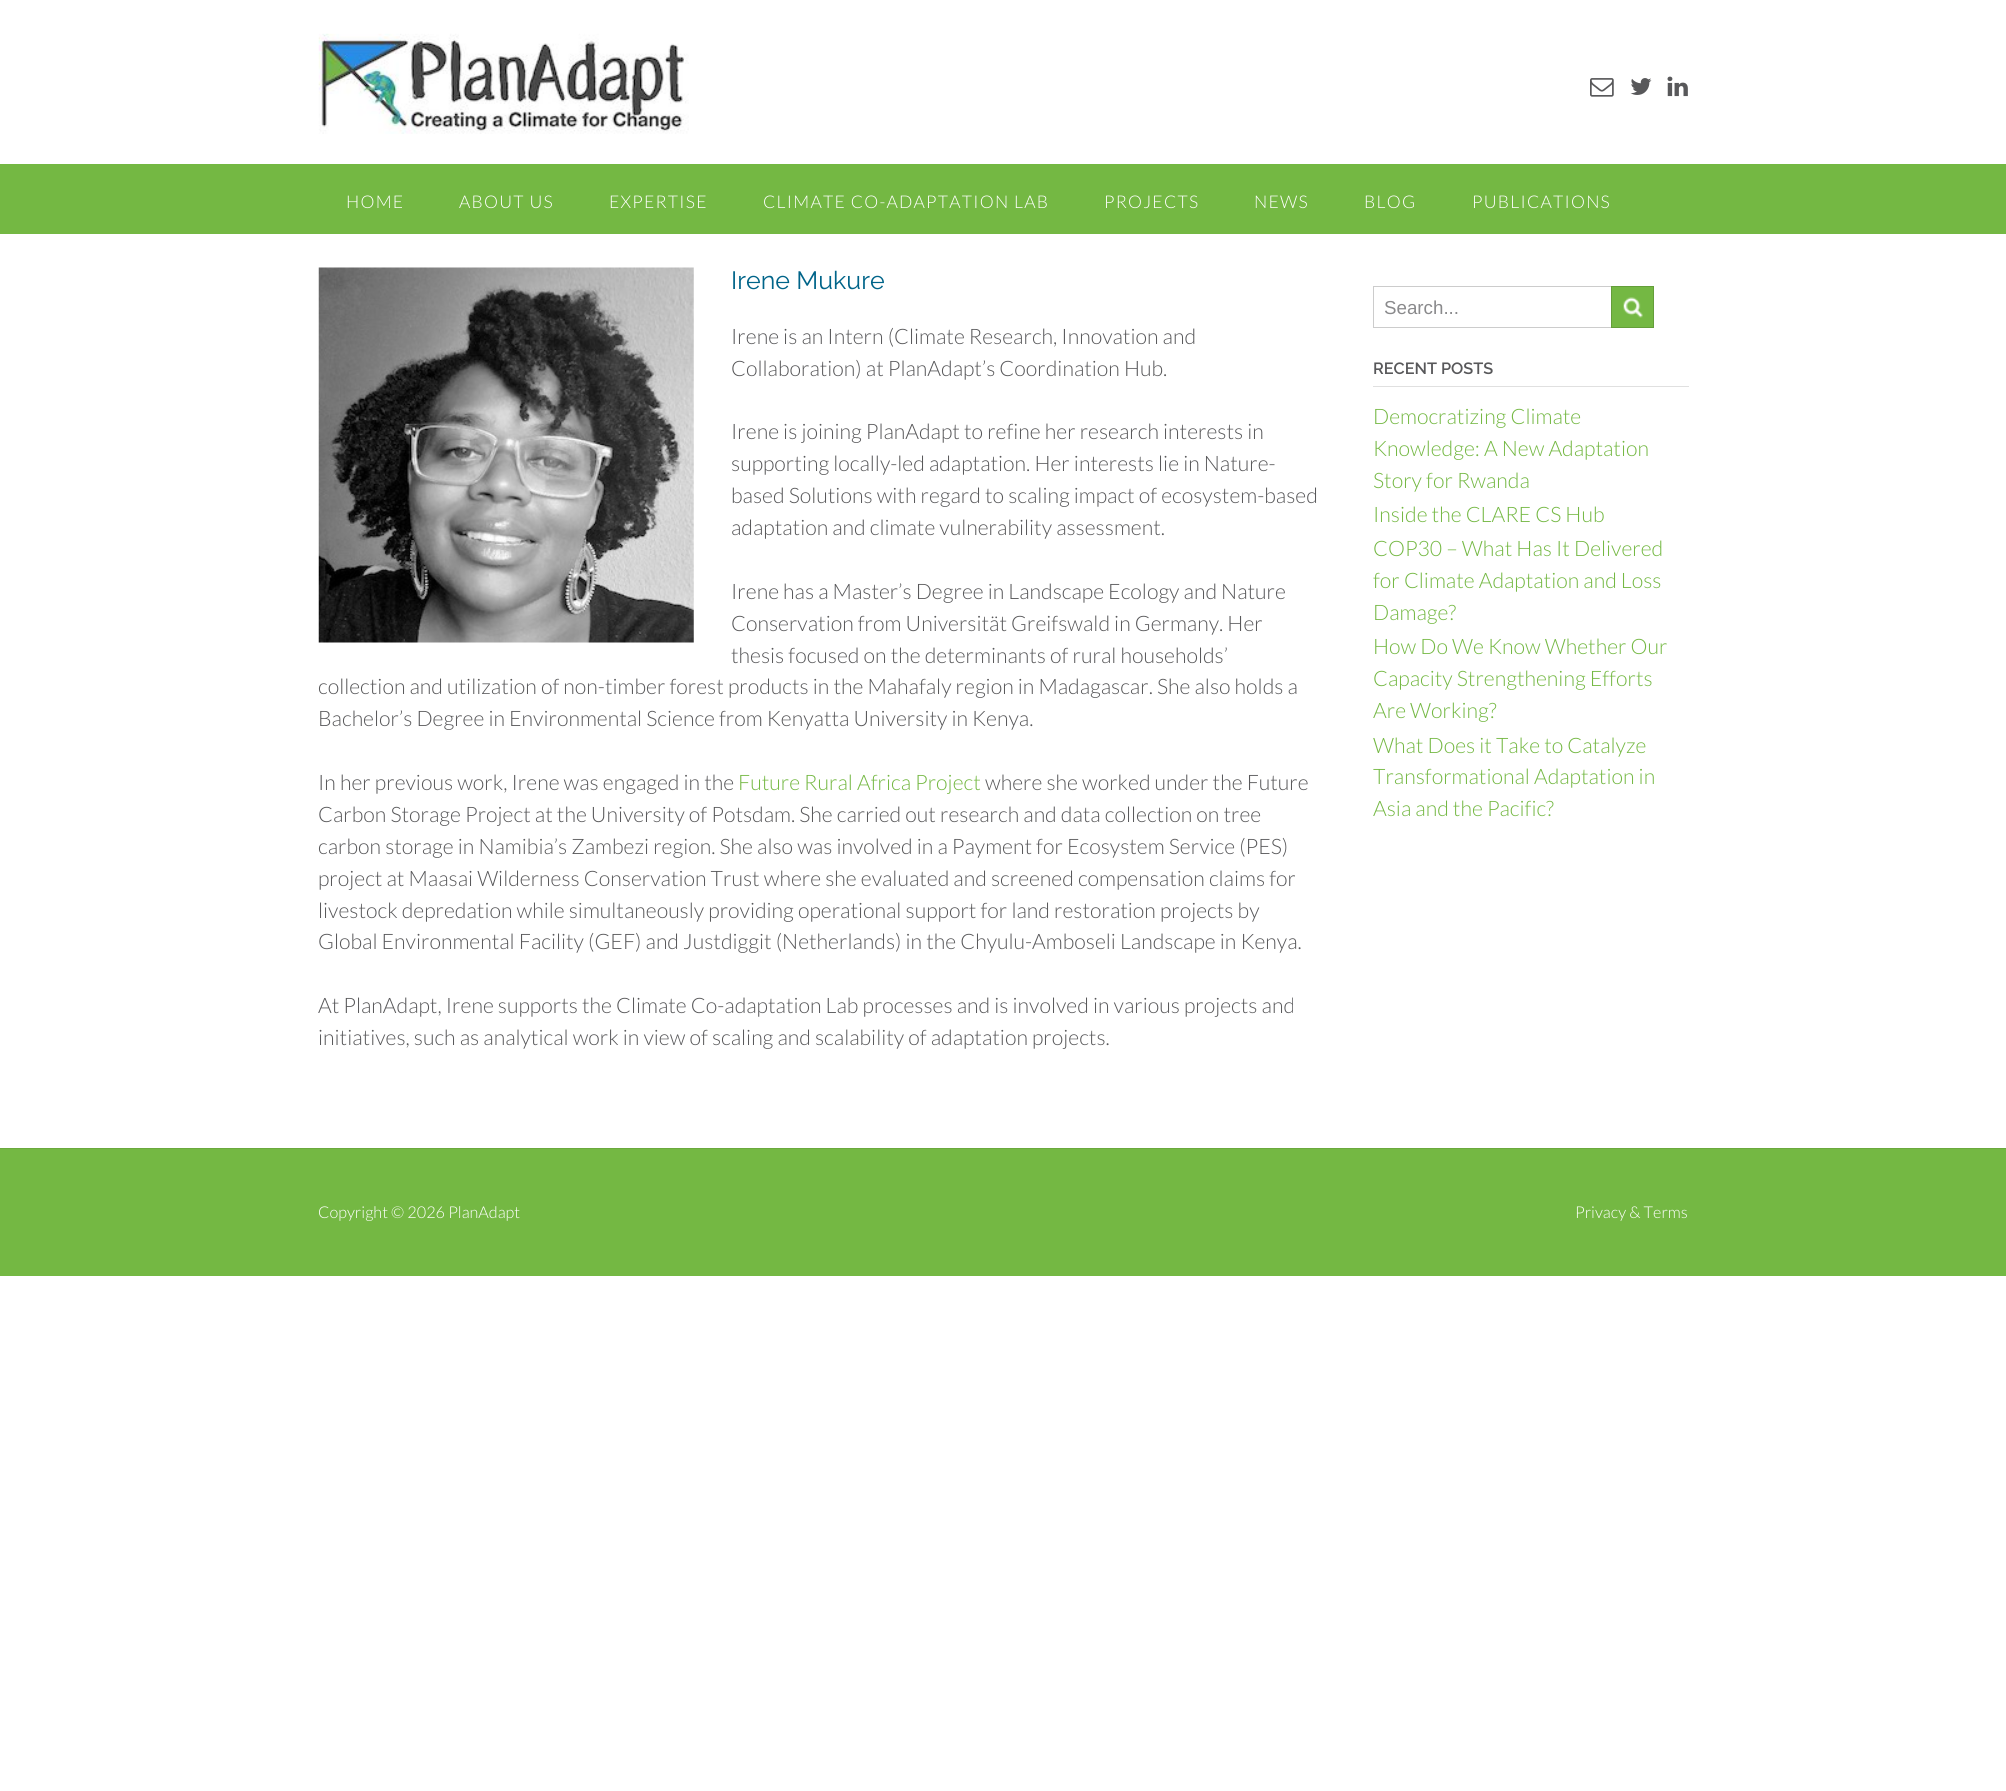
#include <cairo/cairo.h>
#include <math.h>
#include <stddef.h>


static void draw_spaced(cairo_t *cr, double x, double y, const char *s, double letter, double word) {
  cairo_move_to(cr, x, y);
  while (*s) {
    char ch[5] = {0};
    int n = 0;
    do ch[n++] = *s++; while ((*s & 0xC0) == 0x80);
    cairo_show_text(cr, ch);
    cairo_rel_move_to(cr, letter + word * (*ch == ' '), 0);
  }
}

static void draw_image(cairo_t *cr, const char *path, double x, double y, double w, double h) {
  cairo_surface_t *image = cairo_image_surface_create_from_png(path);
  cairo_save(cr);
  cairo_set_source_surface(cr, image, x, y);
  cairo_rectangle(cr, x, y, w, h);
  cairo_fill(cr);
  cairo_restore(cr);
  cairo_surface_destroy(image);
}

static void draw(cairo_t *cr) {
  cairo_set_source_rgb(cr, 1, 1, 1);
  cairo_paint(cr);
  draw_image(cr, "images/1.png", 318, 33, 371, 101);
  draw_image(cr, "images/2.png", 1590, 78, 24, 19);
  draw_image(cr, "images/3.png", 1630, 78, 22, 17);
  draw_image(cr, "images/4.png", 1667, 76, 21, 21);
  cairo_set_source_rgb(cr, 116 / 255.0, 184 / 255.0, 67 / 255.0);
  cairo_rectangle(cr, 0, 164, 2006, 70);
  cairo_fill(cr);
  draw_image(cr, "images/5.png", 318, 267, 376, 376);
  cairo_rectangle(cr, 1373.5, 286.5, 242, 41);
  cairo_set_source_rgb(cr, 204 / 255.0, 204 / 255.0, 204 / 255.0);
  cairo_set_line_width(cr, 1);
  cairo_stroke(cr);
  cairo_set_source_rgb(cr, 116 / 255.0, 184 / 255.0, 67 / 255.0);
  cairo_rectangle(cr, 1612, 287, 41, 40);
  cairo_fill(cr);
  draw_image(cr, "images/6.png", 1623, 297, 20, 21);
  cairo_rectangle(cr, 1611.5, 286.5, 42, 41);
  cairo_set_source_rgb(cr, 100 / 255.0, 158 / 255.0, 58 / 255.0);
  cairo_stroke(cr);
  cairo_set_source_rgb(cr, 224 / 255.0, 224 / 255.0, 224 / 255.0);
  cairo_rectangle(cr, 1373, 386, 316, 1);
  cairo_fill(cr);
  cairo_set_source_rgb(cr, 116 / 255.0, 184 / 255.0, 67 / 255.0);
  cairo_rectangle(cr, 0, 1149, 2006, 127);
  cairo_fill(cr);
  cairo_set_source_rgb(cr, 107 / 255.0, 169 / 255.0, 62 / 255.0);
  cairo_rectangle(cr, 0, 1148, 2006, 1);
  cairo_fill(cr);
  cairo_select_font_face(cr, "Lato Light", CAIRO_FONT_SLANT_NORMAL, CAIRO_FONT_WEIGHT_NORMAL);
  cairo_set_font_size(cr, 17.5);
  cairo_set_source_rgb(cr, 1, 1, 1);
  draw_spaced(cr, 346, 208, "HOME", 1.25, 0);
  draw_spaced(cr, 459, 208, "ABOUT US", 1.25, 0);
  draw_spaced(cr, 609, 208, "EXPERTISE", 1.25, 0);
  draw_spaced(cr, 763, 208, "CLIMATE CO-ADAPTATION LAB", 1.25, 0);
  draw_spaced(cr, 1104, 208, "PROJECTS", 1.25, 0);
  draw_spaced(cr, 1254, 208, "NEWS", 1.25, 0);
  draw_spaced(cr, 1364, 208, "BLOG", 1.25, 0);
  draw_spaced(cr, 1472, 208, "PUBLICATIONS", 1.25, 0);
  cairo_select_font_face(cr, "Raleway", CAIRO_FONT_SLANT_NORMAL, CAIRO_FONT_WEIGHT_NORMAL);
  cairo_set_font_size(cr, 25);
  cairo_set_source_rgb(cr, 0, 100 / 255.0, 137 / 255.0);
  cairo_move_to(cr, 731, 289);
  cairo_show_text(cr, "Irene Mukure");
  cairo_select_font_face(cr, "Lato Light", CAIRO_FONT_SLANT_NORMAL, CAIRO_FONT_WEIGHT_NORMAL);
  cairo_set_font_size(cr, 21.25);
  cairo_set_source_rgb(cr, 88 / 255.0, 88 / 255.0, 90 / 255.0);
  cairo_move_to(cr, 731, 344);
  cairo_show_text(cr, "Irene is an Intern (Climate Research, Innovation and");
  cairo_move_to(cr, 731, 376);
  cairo_show_text(cr, "Collaboration) at PlanAdapt’s Coordination Hub.");
  cairo_move_to(cr, 731, 439);
  cairo_show_text(cr, "Irene is joining PlanAdapt to refine her research interests in");
  cairo_move_to(cr, 731, 471);
  cairo_show_text(cr, "supporting locally-led adaptation. Her interests lie in Nature-");
  cairo_move_to(cr, 731, 503);
  cairo_show_text(cr, "based Solutions with regard to scaling impact of ecosystem-based");
  cairo_move_to(cr, 731, 535);
  cairo_show_text(cr, "adaptation and climate vulnerability assessment.");
  cairo_move_to(cr, 731, 599);
  cairo_show_text(cr, "Irene has a Master’s Degree in Landscape Ecology and Nature");
  cairo_move_to(cr, 731, 631);
  cairo_show_text(cr, "Conservation from Universität Greifswald in Germany. Her");
  cairo_move_to(cr, 731, 663);
  cairo_show_text(cr, "thesis focused on the determinants of rural households’");
  cairo_move_to(cr, 318, 694);
  cairo_show_text(cr, "collection and utilization of non-timber forest products in the Mahafaly region in Madagascar. She also holds a");
  cairo_move_to(cr, 318, 726);
  cairo_show_text(cr, "Bachelor’s Degree in Environmental Science from Kenyatta University in Kenya.");
  cairo_move_to(cr, 318, 790);
  cairo_show_text(cr, "In her previous work, Irene was engaged in the");
  cairo_set_source_rgb(cr, 116 / 255.0, 184 / 255.0, 67 / 255.0);
  cairo_move_to(cr, 738, 790);
  cairo_show_text(cr, "Future Rural Africa Project");
  cairo_set_source_rgb(cr, 88 / 255.0, 88 / 255.0, 90 / 255.0);
  cairo_move_to(cr, 985, 790);
  cairo_show_text(cr, "where she worked under the Future");
  cairo_move_to(cr, 318, 822);
  cairo_show_text(cr, "Carbon Storage Project at the University of Potsdam. She carried out research and data collection on tree");
  cairo_move_to(cr, 318, 854);
  cairo_show_text(cr, "carbon storage in Namibia’s Zambezi region. She also was involved in a Payment for Ecosystem Service (PES)");
  cairo_move_to(cr, 318, 886);
  cairo_show_text(cr, "project at Maasai Wilderness Conservation Trust where she evaluated and screened compensation claims for");
  cairo_move_to(cr, 318, 918);
  cairo_show_text(cr, "livestock depredation while simultaneously providing operational support for land restoration projects by");
  cairo_move_to(cr, 318, 949);
  cairo_show_text(cr, "Global Environmental Facility (GEF) and Justdiggit (Netherlands) in the Chyulu-Amboseli Landscape in Kenya.");
  cairo_move_to(cr, 318, 1013);
  cairo_show_text(cr, "At PlanAdapt, Irene supports the Climate Co-adaptation Lab processes and is involved in various projects and");
  cairo_move_to(cr, 318, 1045);
  cairo_show_text(cr, "initiatives, such as analytical work in view of scaling and scalability of adaptation projects.");
  cairo_select_font_face(cr, "Liberation Sans", CAIRO_FONT_SLANT_NORMAL, CAIRO_FONT_WEIGHT_NORMAL);
  cairo_set_font_size(cr, 18.75);
  cairo_set_source_rgb(cr, 138 / 255.0, 138 / 255.0, 140 / 255.0);
  cairo_move_to(cr, 1384, 314);
  cairo_show_text(cr, "Search...");
  cairo_select_font_face(cr, "Raleway SemiBold", CAIRO_FONT_SLANT_NORMAL, CAIRO_FONT_WEIGHT_NORMAL);
  cairo_set_font_size(cr, 16.25);
  cairo_set_source_rgb(cr, 88 / 255.0, 88 / 255.0, 90 / 255.0);
  cairo_move_to(cr, 1373, 374);
  cairo_show_text(cr, "RECENT POSTS");
  cairo_select_font_face(cr, "Lato Light", CAIRO_FONT_SLANT_NORMAL, CAIRO_FONT_WEIGHT_NORMAL);
  cairo_set_font_size(cr, 21.25);
  cairo_set_source_rgb(cr, 116 / 255.0, 184 / 255.0, 67 / 255.0);
  cairo_move_to(cr, 1373, 424);
  cairo_show_text(cr, "Democratizing Climate");
  cairo_move_to(cr, 1373, 456);
  cairo_show_text(cr, "Knowledge: A New Adaptation");
  cairo_move_to(cr, 1373, 488);
  cairo_show_text(cr, "Story for Rwanda");
  cairo_move_to(cr, 1373, 522);
  cairo_show_text(cr, "Inside the CLARE CS Hub");
  cairo_move_to(cr, 1373, 556);
  cairo_show_text(cr, "COP30 – What Has It Delivered");
  cairo_move_to(cr, 1373, 588);
  cairo_show_text(cr, "for Climate Adaptation and Loss");
  cairo_move_to(cr, 1373, 620);
  cairo_show_text(cr, "Damage?");
  cairo_move_to(cr, 1373, 654);
  cairo_show_text(cr, "How Do We Know Whether Our");
  cairo_move_to(cr, 1373, 686);
  cairo_show_text(cr, "Capacity Strengthening Efforts");
  cairo_move_to(cr, 1373, 718);
  cairo_show_text(cr, "Are Working?");
  cairo_move_to(cr, 1373, 753);
  cairo_show_text(cr, "What Does it Take to Catalyze");
  cairo_move_to(cr, 1373, 784);
  cairo_show_text(cr, "Transformational Adaptation in");
  cairo_move_to(cr, 1373, 816);
  cairo_show_text(cr, "Asia and the Pacific?");
  cairo_set_font_size(cr, 16.25);
  cairo_set_source_rgb(cr, 1, 1, 1);
  cairo_move_to(cr, 318, 1218);
  cairo_show_text(cr, "Copyright © 2026 PlanAdapt");
  cairo_move_to(cr, 1575, 1218);
  cairo_show_text(cr, "Privacy & Terms");
}

int main(void) {
  cairo_surface_t *surface = cairo_image_surface_create(CAIRO_FORMAT_RGB24, 2006, 1791);
  cairo_t *cr = cairo_create(surface);
  cairo_font_options_t *options = cairo_font_options_create();
  cairo_font_options_set_hint_metrics(options, CAIRO_HINT_METRICS_OFF);
  cairo_font_options_set_hint_style(options, CAIRO_HINT_STYLE_NONE);
  cairo_set_font_options(cr, options);
  cairo_set_miter_limit(cr, 4);
  draw(cr);
  cairo_surface_write_to_png(surface, "out.png");
  cairo_font_options_destroy(options);
  cairo_destroy(cr);
  cairo_surface_destroy(surface);
  return 0;
}
